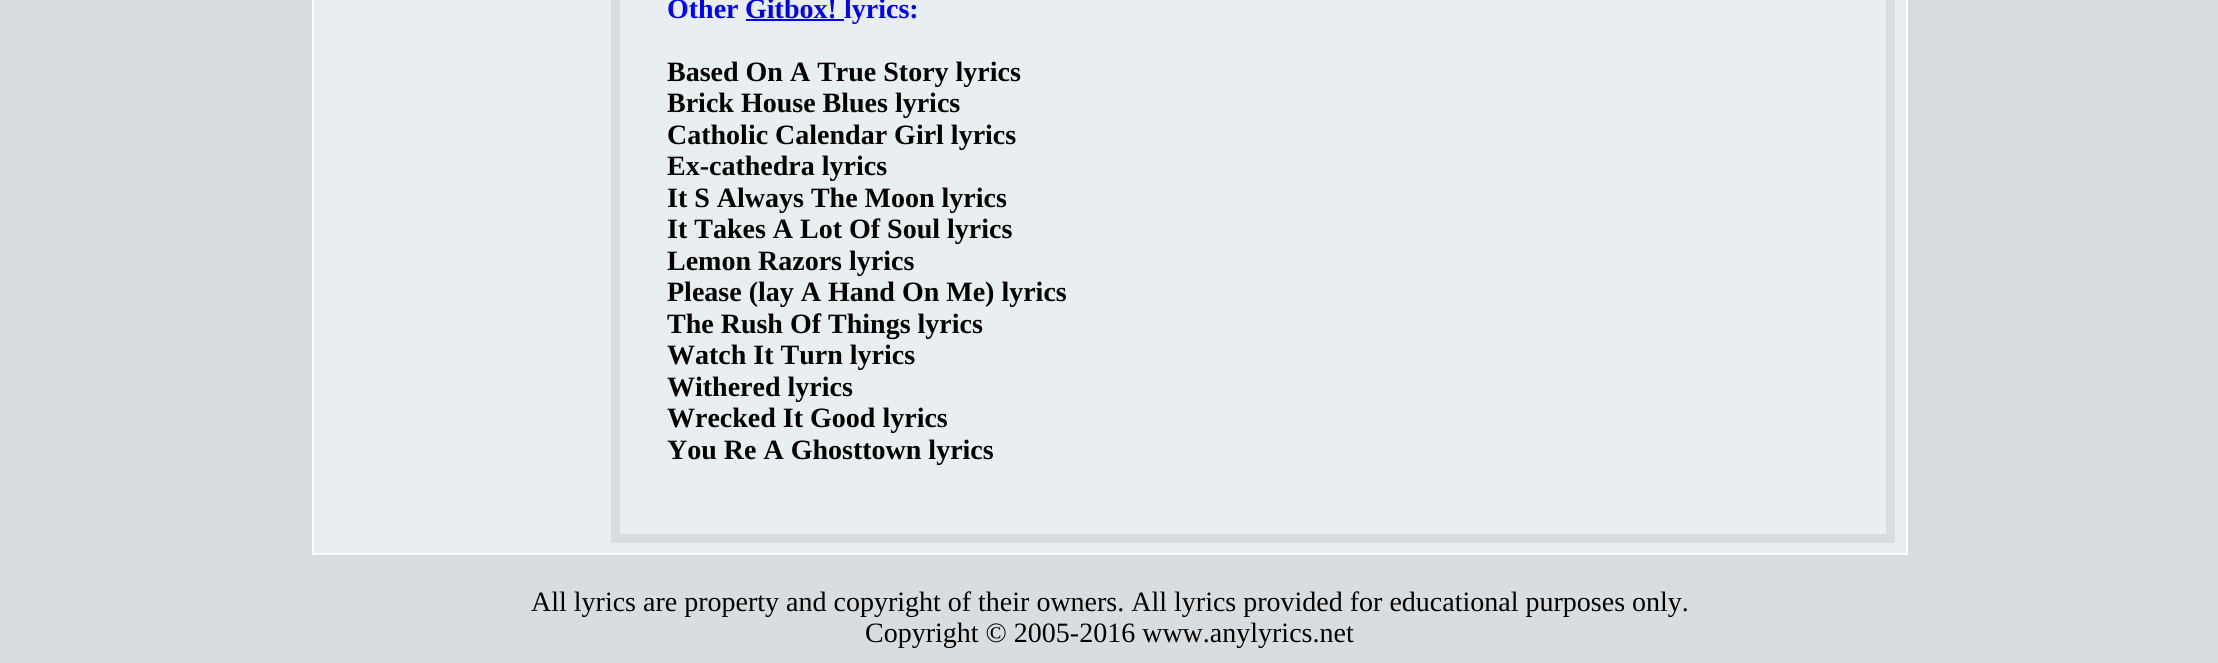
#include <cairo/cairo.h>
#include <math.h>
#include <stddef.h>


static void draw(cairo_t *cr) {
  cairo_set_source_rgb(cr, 217 / 255.0, 221 / 255.0, 224 / 255.0);
  cairo_paint(cr);
  cairo_set_source_rgb(cr, 233 / 255.0, 238 / 255.0, 241 / 255.0);
  cairo_rectangle(cr, 313, -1, 1594, 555);
  cairo_fill_preserve(cr);
  cairo_set_source_rgb(cr, 1, 1, 1);
  cairo_stroke(cr);
  cairo_rectangle(cr, 615.5, -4.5, 1275, 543);
  cairo_set_source_rgb(cr, 217 / 255.0, 221 / 255.0, 224 / 255.0);
  cairo_set_line_width(cr, 9);
  cairo_stroke(cr);
  cairo_set_source_rgb(cr, 0, 0, 238 / 255.0);
  cairo_rectangle(cr, 746, 19, 98, 2);
  cairo_fill(cr);
  cairo_select_font_face(cr, "Liberation Serif", CAIRO_FONT_SLANT_NORMAL, CAIRO_FONT_WEIGHT_BOLD);
  cairo_set_font_size(cr, 28);
  cairo_set_source_rgb(cr, 0, 0, 1);
  cairo_move_to(cr, 667, 18);
  cairo_show_text(cr, "Other");
  cairo_set_source_rgb(cr, 0, 0, 238 / 255.0);
  cairo_move_to(cr, 745, 18);
  cairo_show_text(cr, "Gitbox!");
  cairo_set_source_rgb(cr, 0, 0, 1);
  cairo_move_to(cr, 844, 18);
  cairo_show_text(cr, "lyrics:");
  cairo_set_source_rgb(cr, 0, 0, 0);
  cairo_move_to(cr, 667, 81);
  cairo_show_text(cr, "Based On A True Story lyrics");
  cairo_move_to(cr, 667, 112);
  cairo_show_text(cr, "Brick House Blues lyrics");
  cairo_move_to(cr, 667, 144);
  cairo_show_text(cr, "Catholic Calendar Girl lyrics");
  cairo_move_to(cr, 667, 175);
  cairo_show_text(cr, "Ex-cathedra lyrics");
  cairo_move_to(cr, 667, 207);
  cairo_show_text(cr, "It S Always The Moon lyrics");
  cairo_move_to(cr, 667, 238);
  cairo_show_text(cr, "It Takes A Lot Of Soul lyrics");
  cairo_move_to(cr, 667, 270);
  cairo_show_text(cr, "Lemon Razors lyrics");
  cairo_move_to(cr, 667, 301);
  cairo_show_text(cr, "Please (lay A Hand On Me) lyrics");
  cairo_move_to(cr, 667, 333);
  cairo_show_text(cr, "The Rush Of Things lyrics");
  cairo_move_to(cr, 667, 364);
  cairo_show_text(cr, "Watch It Turn lyrics");
  cairo_move_to(cr, 667, 396);
  cairo_show_text(cr, "Withered lyrics");
  cairo_move_to(cr, 667, 427);
  cairo_show_text(cr, "Wrecked It Good lyrics");
  cairo_move_to(cr, 667, 459);
  cairo_show_text(cr, "You Re A Ghosttown lyrics");
  cairo_select_font_face(cr, "Liberation Serif", CAIRO_FONT_SLANT_NORMAL, CAIRO_FONT_WEIGHT_NORMAL);
  cairo_move_to(cr, 531, 611);
  cairo_show_text(cr, "All lyrics are property and copyright of their owners. All lyrics provided for educational purposes only.");
  cairo_move_to(cr, 865, 642);
  cairo_show_text(cr, "Copyright © 2005-2016 www.anylyrics.net");
}

int main(void) {
  cairo_surface_t *surface = cairo_image_surface_create(CAIRO_FORMAT_RGB24, 2218, 663);
  cairo_t *cr = cairo_create(surface);
  cairo_font_options_t *options = cairo_font_options_create();
  cairo_font_options_set_hint_metrics(options, CAIRO_HINT_METRICS_OFF);
  cairo_font_options_set_hint_style(options, CAIRO_HINT_STYLE_NONE);
  cairo_set_font_options(cr, options);
  cairo_set_miter_limit(cr, 4);
  draw(cr);
  cairo_surface_write_to_png(surface, "out.png");
  cairo_font_options_destroy(options);
  cairo_destroy(cr);
  cairo_surface_destroy(surface);
  return 0;
}
